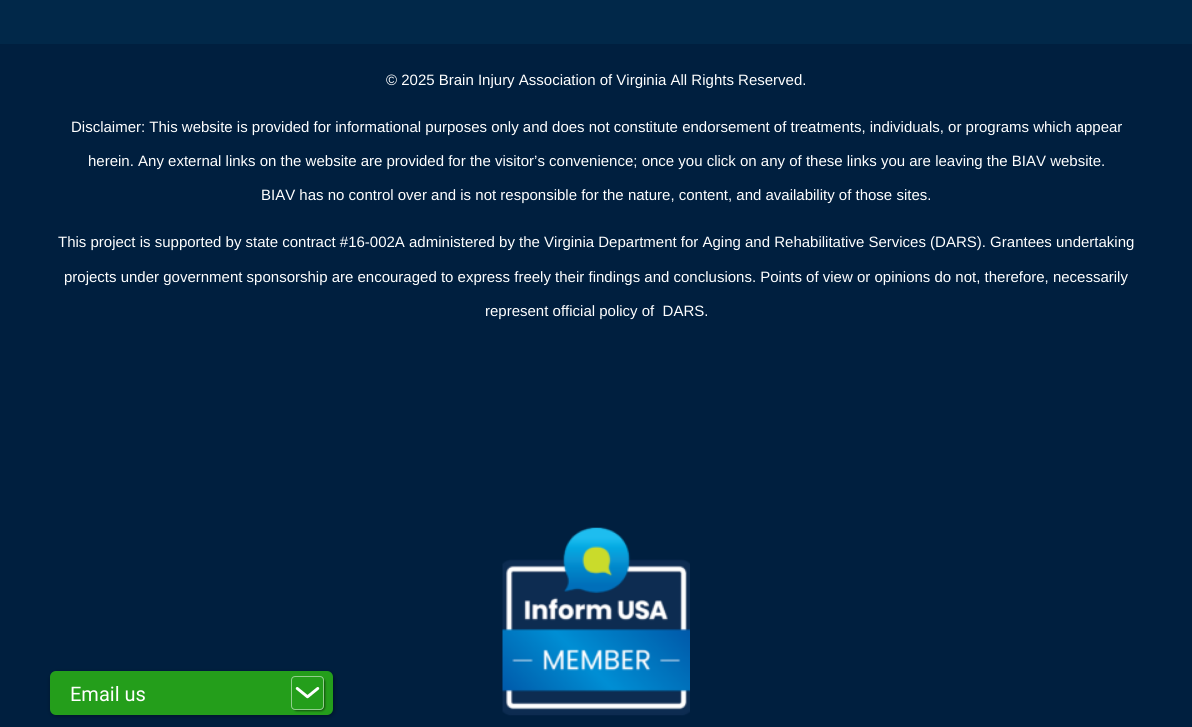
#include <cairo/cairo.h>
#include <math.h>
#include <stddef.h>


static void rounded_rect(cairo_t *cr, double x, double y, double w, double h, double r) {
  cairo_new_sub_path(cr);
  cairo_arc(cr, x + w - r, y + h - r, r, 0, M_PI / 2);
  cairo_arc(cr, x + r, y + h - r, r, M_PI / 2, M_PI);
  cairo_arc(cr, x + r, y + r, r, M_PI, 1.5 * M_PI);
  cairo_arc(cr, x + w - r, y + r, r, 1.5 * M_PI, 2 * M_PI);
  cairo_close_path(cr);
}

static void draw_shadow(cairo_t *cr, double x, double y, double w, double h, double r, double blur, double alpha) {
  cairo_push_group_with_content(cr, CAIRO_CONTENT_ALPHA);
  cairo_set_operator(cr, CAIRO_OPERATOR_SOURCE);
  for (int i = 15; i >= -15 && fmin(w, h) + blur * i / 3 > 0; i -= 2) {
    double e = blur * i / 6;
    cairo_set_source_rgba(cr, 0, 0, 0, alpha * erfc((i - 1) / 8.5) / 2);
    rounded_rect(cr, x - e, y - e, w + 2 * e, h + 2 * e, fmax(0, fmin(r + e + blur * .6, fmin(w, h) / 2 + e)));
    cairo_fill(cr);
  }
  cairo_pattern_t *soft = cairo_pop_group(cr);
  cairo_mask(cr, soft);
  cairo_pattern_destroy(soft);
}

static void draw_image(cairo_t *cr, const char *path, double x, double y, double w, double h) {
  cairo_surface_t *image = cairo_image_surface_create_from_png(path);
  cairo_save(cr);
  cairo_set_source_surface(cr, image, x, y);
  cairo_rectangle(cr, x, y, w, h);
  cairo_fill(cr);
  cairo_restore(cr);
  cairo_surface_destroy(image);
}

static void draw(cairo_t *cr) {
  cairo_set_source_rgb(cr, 1 / 255.0, 40 / 255.0, 73 / 255.0);
  cairo_paint(cr);
  cairo_set_source_rgb(cr, 0, 31 / 255.0, 63 / 255.0);
  cairo_rectangle(cr, 0, 44, 1192, 683);
  cairo_fill(cr);
  draw_image(cr, "images/1.png", 502, 527, 188, 189);
  cairo_set_source_rgb(cr, 0, 0, 0);
  draw_shadow(cr, 51, 673, 283, 43, 6, 2.5, 0.4);
  cairo_set_source_rgb(cr, 36 / 255.0, 158 / 255.0, 27 / 255.0);
  rounded_rect(cr, 50, 671, 283, 44, 6);
  cairo_fill(cr);
  cairo_save(cr);
  cairo_set_fill_rule(cr, CAIRO_FILL_RULE_EVEN_ODD);
  cairo_new_path(cr);
  cairo_move_to(cr, 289, 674);
  cairo_line_to(cr, 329, 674);
  cairo_line_to(cr, 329, 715);
  cairo_line_to(cr, 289, 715);
  cairo_close_path(cr);
  cairo_move_to(cr, 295, 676);
  cairo_line_to(cr, 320, 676);
  cairo_curve_to(cr, 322, 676, 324, 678, 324, 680);
  cairo_line_to(cr, 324, 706);
  cairo_curve_to(cr, 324, 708, 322, 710, 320, 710);
  cairo_line_to(cr, 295, 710);
  cairo_curve_to(cr, 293, 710, 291, 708, 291, 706);
  cairo_line_to(cr, 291, 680);
  cairo_curve_to(cr, 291, 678, 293, 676, 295, 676);
  cairo_close_path(cr);
  cairo_clip(cr);
  cairo_set_source_rgb(cr, 0, 0, 0);
  draw_shadow(cr, 293, 678, 32, 33, 4, 1, 0.5);
  cairo_restore(cr);
  rounded_rect(cr, 291.5, 676.5, 32, 33, 3.5);
  cairo_set_source_rgba(cr, 1, 1, 1, 0.5);
  cairo_set_line_width(cr, 1);
  cairo_stroke(cr);
  draw_image(cr, "images/2.png", 295, 687, 25, 12);
  cairo_select_font_face(cr, "Liberation Sans", CAIRO_FONT_SLANT_NORMAL, CAIRO_FONT_WEIGHT_NORMAL);
  cairo_set_font_size(cr, 15);
  cairo_set_source_rgb(cr, 1, 1, 1);
  cairo_move_to(cr, 386, 85);
  cairo_show_text(cr, "© 2025 Brain Injury Association of Virginia All Rights Reserved.");
  cairo_move_to(cr, 71, 132);
  cairo_show_text(cr, "Disclaimer: This website is provided for informational purposes only and does not constitute endorsement of treatments, individuals, or programs which appear");
  cairo_move_to(cr, 88, 166);
  cairo_show_text(cr, "herein. Any external links on the website are provided for the visitor’s convenience; once you click on any of these links you are leaving the BIAV website.");
  cairo_move_to(cr, 261, 200);
  cairo_show_text(cr, "BIAV has no control over and is not responsible for the nature, content, and availability of those sites.");
  cairo_move_to(cr, 58, 247);
  cairo_show_text(cr, "This project is supported by state contract #16-002A administered by the Virginia Department for Aging and Rehabilitative Services (DARS). Grantees undertaking");
  cairo_move_to(cr, 64, 282);
  cairo_show_text(cr, "projects under government sponsorship are encouraged to express freely their findings and conclusions. Points of view or opinions do not, therefore, necessarily");
  cairo_move_to(cr, 485, 316);
  cairo_show_text(cr, "represent official policy of  DARS.");
  cairo_select_font_face(cr, "Roboto", CAIRO_FONT_SLANT_NORMAL, CAIRO_FONT_WEIGHT_NORMAL);
  cairo_set_font_size(cr, 20);
  cairo_move_to(cr, 70, 701);
  cairo_show_text(cr, "Email us");
}

int main(void) {
  cairo_surface_t *surface = cairo_image_surface_create(CAIRO_FORMAT_RGB24, 1192, 727);
  cairo_t *cr = cairo_create(surface);
  cairo_font_options_t *options = cairo_font_options_create();
  cairo_font_options_set_hint_metrics(options, CAIRO_HINT_METRICS_OFF);
  cairo_font_options_set_hint_style(options, CAIRO_HINT_STYLE_NONE);
  cairo_set_font_options(cr, options);
  cairo_set_miter_limit(cr, 4);
  draw(cr);
  cairo_surface_write_to_png(surface, "out.png");
  cairo_font_options_destroy(options);
  cairo_destroy(cr);
  cairo_surface_destroy(surface);
  return 0;
}
